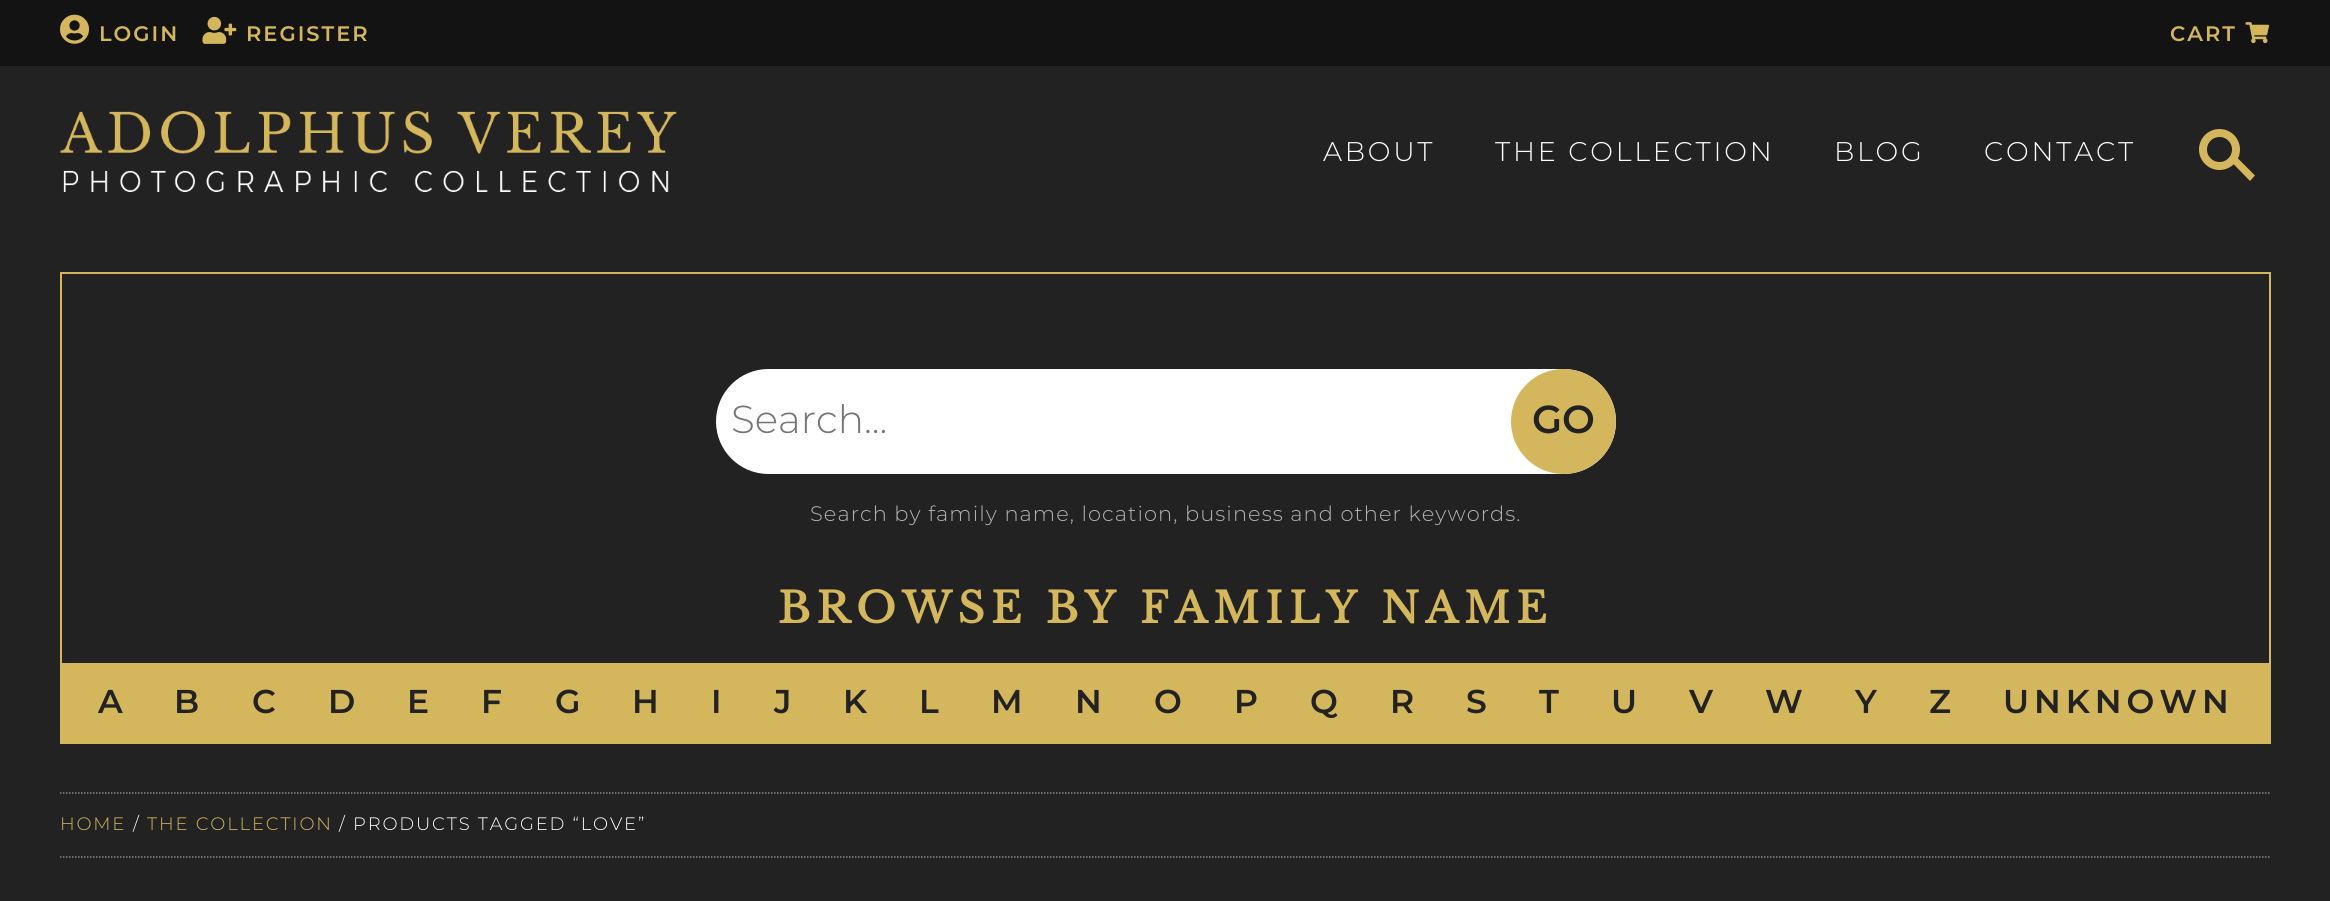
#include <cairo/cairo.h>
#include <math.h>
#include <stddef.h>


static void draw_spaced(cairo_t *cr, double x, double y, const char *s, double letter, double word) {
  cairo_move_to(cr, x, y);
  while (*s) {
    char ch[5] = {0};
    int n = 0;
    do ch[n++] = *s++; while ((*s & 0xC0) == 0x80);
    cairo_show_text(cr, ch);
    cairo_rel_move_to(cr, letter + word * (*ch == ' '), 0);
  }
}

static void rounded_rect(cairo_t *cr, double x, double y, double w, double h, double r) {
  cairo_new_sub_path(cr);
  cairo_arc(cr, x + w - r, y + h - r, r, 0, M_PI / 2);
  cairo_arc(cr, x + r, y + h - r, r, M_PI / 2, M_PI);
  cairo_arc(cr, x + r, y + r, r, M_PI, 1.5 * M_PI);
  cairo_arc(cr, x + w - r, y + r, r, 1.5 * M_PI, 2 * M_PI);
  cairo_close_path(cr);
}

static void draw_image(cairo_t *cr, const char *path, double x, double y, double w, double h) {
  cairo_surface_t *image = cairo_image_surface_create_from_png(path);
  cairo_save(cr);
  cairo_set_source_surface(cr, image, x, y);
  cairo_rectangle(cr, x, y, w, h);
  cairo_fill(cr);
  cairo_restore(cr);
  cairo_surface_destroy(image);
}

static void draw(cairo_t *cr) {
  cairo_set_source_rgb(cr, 35 / 255.0, 34 / 255.0, 34 / 255.0);
  cairo_paint(cr);
  cairo_set_source_rgb(cr, 19 / 255.0, 19 / 255.0, 19 / 255.0);
  cairo_rectangle(cr, 0, 0, 2330, 66);
  cairo_fill(cr);
  draw_image(cr, "images/1.png", 60, 14, 30, 30);
  draw_image(cr, "images/2.png", 202, 16, 35, 28);
  draw_image(cr, "images/3.png", 2245, 22, 25, 22);
  draw_image(cr, "images/4.png", 60, 111, 617, 81);
  cairo_arc(cr, 2219.5, 149.5, 16.5, 0, 2 * M_PI);
  cairo_set_source_rgb(cr, 212 / 255.0, 183 / 255.0, 93 / 255.0);
  cairo_set_line_width(cr, 8);
  cairo_stroke(cr);
  cairo_new_path(cr);
  cairo_move_to(cr, 2236, 156.5);
  cairo_line_to(cr, 2255, 175.5);
  cairo_line_to(cr, 2250, 181);
  cairo_line_to(cr, 2231, 161.5);
  cairo_close_path(cr);
  cairo_fill(cr);
  cairo_rectangle(cr, 61, 273, 2209, 391);
  cairo_set_line_width(cr, 2);
  cairo_stroke(cr);
  cairo_set_source_rgb(cr, 1, 1, 1);
  rounded_rect(cr, 716, 369, 900, 105, 52.5);
  cairo_fill(cr);
  cairo_set_source_rgb(cr, 212 / 255.0, 183 / 255.0, 93 / 255.0);
  cairo_arc(cr, 1563.5, 421.5, 52.5, 0, 2 * M_PI);
  cairo_fill(cr);
  cairo_rectangle(cr, 60, 665, 2211, 79);
  cairo_fill(cr);
  cairo_new_path(cr);
  cairo_move_to(cr, 60, 793);
  cairo_line_to(cr, 2271, 793);
  cairo_set_source_rgb(cr, 137 / 255.0, 137 / 255.0, 137 / 255.0);
  cairo_set_line_width(cr, 1.5);
  cairo_set_dash(cr, (double[]){1.5, 1.5}, 2, 0);
  cairo_stroke(cr);
  cairo_new_path(cr);
  cairo_move_to(cr, 60, 857);
  cairo_line_to(cr, 2271, 857);
  cairo_stroke(cr);
  cairo_select_font_face(cr, "Montserrat SemiBold", CAIRO_FONT_SLANT_NORMAL, CAIRO_FONT_WEIGHT_NORMAL);
  cairo_set_font_size(cr, 21);
  cairo_set_source_rgb(cr, 212 / 255.0, 183 / 255.0, 93 / 255.0);
  draw_spaced(cr, 99, 41, "LOGIN", 2, 0);
  draw_spaced(cr, 246, 41, "REGISTER", 2, 0);
  draw_spaced(cr, 2170, 41, "CART", 2, 0);
  cairo_select_font_face(cr, "Montserrat Light", CAIRO_FONT_SLANT_NORMAL, CAIRO_FONT_WEIGHT_NORMAL);
  cairo_set_font_size(cr, 27);
  cairo_set_source_rgb(cr, 1, 1, 1);
  draw_spaced(cr, 1323, 161, "ABOUT", 2.75, 0);
  draw_spaced(cr, 1495, 161, "THE COLLECTION", 2.75, 0);
  draw_spaced(cr, 1834, 161, "BLOG", 2.75, 0);
  draw_spaced(cr, 1984, 161, "CONTACT", 2.75, 0);
  cairo_set_font_size(cr, 39);
  cairo_set_source_rgb(cr, 117 / 255.0, 117 / 255.0, 117 / 255.0);
  cairo_move_to(cr, 731, 433);
  cairo_show_text(cr, "Search...");
  cairo_select_font_face(cr, "Montserrat SemiBold", CAIRO_FONT_SLANT_NORMAL, CAIRO_FONT_WEIGHT_NORMAL);
  cairo_set_source_rgb(cr, 35 / 255.0, 34 / 255.0, 34 / 255.0);
  cairo_move_to(cr, 1532, 433);
  cairo_show_text(cr, "GO");
  cairo_select_font_face(cr, "Montserrat Light", CAIRO_FONT_SLANT_NORMAL, CAIRO_FONT_WEIGHT_NORMAL);
  cairo_set_font_size(cr, 21);
  cairo_set_source_rgb(cr, 178 / 255.0, 178 / 255.0, 178 / 255.0);
  draw_spaced(cr, 810, 521, "Search by family name, location, business and other keywords.", 1.05, 0);
  cairo_select_font_face(cr, "Libre Baskerville", CAIRO_FONT_SLANT_NORMAL, CAIRO_FONT_WEIGHT_BOLD);
  cairo_set_font_size(cr, 42);
  cairo_set_source_rgb(cr, 212 / 255.0, 183 / 255.0, 93 / 255.0);
  draw_spaced(cr, 778, 623, "BROWSE BY FAMILY NAME", 6.3, 0);
  cairo_select_font_face(cr, "Montserrat SemiBold", CAIRO_FONT_SLANT_NORMAL, CAIRO_FONT_WEIGHT_NORMAL);
  cairo_set_font_size(cr, 33);
  cairo_set_source_rgb(cr, 35 / 255.0, 34 / 255.0, 34 / 255.0);
  draw_spaced(cr, 98, 713, "A", 5, 0);
  draw_spaced(cr, 174, 713, "B", 5, 0);
  draw_spaced(cr, 252, 713, "C", 5, 0);
  draw_spaced(cr, 328, 713, "D", 5, 0);
  draw_spaced(cr, 407, 713, "E", 5, 0);
  draw_spaced(cr, 481, 713, "F", 5, 0);
  draw_spaced(cr, 555, 713, "G", 5, 0);
  draw_spaced(cr, 632, 713, "H", 5, 0);
  draw_spaced(cr, 711, 713, "I", 5, 0);
  draw_spaced(cr, 774, 713, "J", 5, 0);
  draw_spaced(cr, 843, 713, "K", 5, 0);
  draw_spaced(cr, 919, 713, "L", 5, 0);
  draw_spaced(cr, 991, 713, "M", 5, 0);
  draw_spaced(cr, 1075, 713, "N", 5, 0);
  draw_spaced(cr, 1154, 713, "O", 5, 0);
  draw_spaced(cr, 1234, 713, "P", 5, 0);
  draw_spaced(cr, 1310, 713, "Q", 5, 0);
  draw_spaced(cr, 1390, 713, "R", 5, 0);
  draw_spaced(cr, 1466, 713, "S", 5, 0);
  draw_spaced(cr, 1539, 713, "T", 5, 0);
  draw_spaced(cr, 1611, 713, "U", 5, 0);
  draw_spaced(cr, 1689, 713, "V", 5, 0);
  draw_spaced(cr, 1765, 713, "W", 5, 0);
  draw_spaced(cr, 1855, 713, "Y", 5, 0);
  draw_spaced(cr, 1929, 713, "Z", 5, 0);
  draw_spaced(cr, 2003, 713, "UNKNOWN", 5, 0);
  cairo_select_font_face(cr, "Montserrat Light", CAIRO_FONT_SLANT_NORMAL, CAIRO_FONT_WEIGHT_NORMAL);
  cairo_set_font_size(cr, 18);
  cairo_set_source_rgb(cr, 212 / 255.0, 183 / 255.0, 93 / 255.0);
  draw_spaced(cr, 60, 830, "HOME", 1.8, 0);
  cairo_set_source_rgb(cr, 1, 1, 1);
  draw_spaced(cr, 133, 830, "/", 1.8, 0);
  cairo_set_source_rgb(cr, 212 / 255.0, 183 / 255.0, 93 / 255.0);
  draw_spaced(cr, 147, 830, "THE COLLECTION", 1.8, 0);
  cairo_set_source_rgb(cr, 1, 1, 1);
  draw_spaced(cr, 339, 830, "/ PRODUCTS TAGGED “LOVE”", 1.8, 0);
}

int main(void) {
  cairo_surface_t *surface = cairo_image_surface_create(CAIRO_FORMAT_RGB24, 2330, 901);
  cairo_t *cr = cairo_create(surface);
  cairo_font_options_t *options = cairo_font_options_create();
  cairo_font_options_set_hint_metrics(options, CAIRO_HINT_METRICS_OFF);
  cairo_font_options_set_hint_style(options, CAIRO_HINT_STYLE_NONE);
  cairo_set_font_options(cr, options);
  cairo_set_miter_limit(cr, 4);
  draw(cr);
  cairo_surface_write_to_png(surface, "out.png");
  cairo_font_options_destroy(options);
  cairo_destroy(cr);
  cairo_surface_destroy(surface);
  return 0;
}
